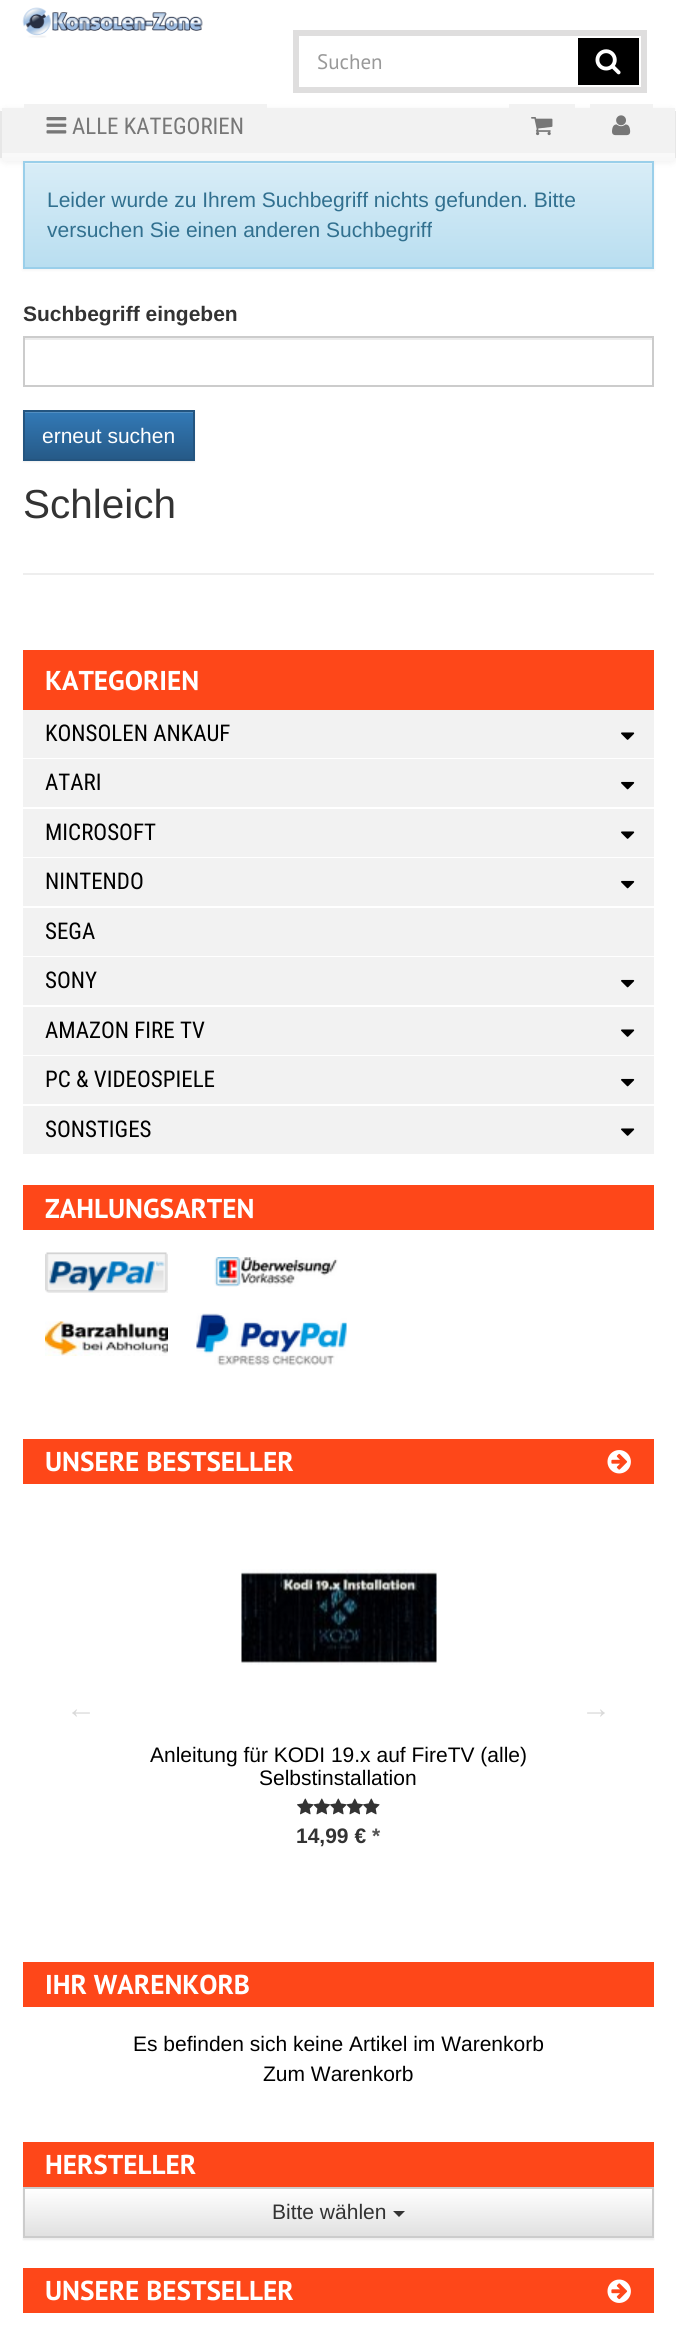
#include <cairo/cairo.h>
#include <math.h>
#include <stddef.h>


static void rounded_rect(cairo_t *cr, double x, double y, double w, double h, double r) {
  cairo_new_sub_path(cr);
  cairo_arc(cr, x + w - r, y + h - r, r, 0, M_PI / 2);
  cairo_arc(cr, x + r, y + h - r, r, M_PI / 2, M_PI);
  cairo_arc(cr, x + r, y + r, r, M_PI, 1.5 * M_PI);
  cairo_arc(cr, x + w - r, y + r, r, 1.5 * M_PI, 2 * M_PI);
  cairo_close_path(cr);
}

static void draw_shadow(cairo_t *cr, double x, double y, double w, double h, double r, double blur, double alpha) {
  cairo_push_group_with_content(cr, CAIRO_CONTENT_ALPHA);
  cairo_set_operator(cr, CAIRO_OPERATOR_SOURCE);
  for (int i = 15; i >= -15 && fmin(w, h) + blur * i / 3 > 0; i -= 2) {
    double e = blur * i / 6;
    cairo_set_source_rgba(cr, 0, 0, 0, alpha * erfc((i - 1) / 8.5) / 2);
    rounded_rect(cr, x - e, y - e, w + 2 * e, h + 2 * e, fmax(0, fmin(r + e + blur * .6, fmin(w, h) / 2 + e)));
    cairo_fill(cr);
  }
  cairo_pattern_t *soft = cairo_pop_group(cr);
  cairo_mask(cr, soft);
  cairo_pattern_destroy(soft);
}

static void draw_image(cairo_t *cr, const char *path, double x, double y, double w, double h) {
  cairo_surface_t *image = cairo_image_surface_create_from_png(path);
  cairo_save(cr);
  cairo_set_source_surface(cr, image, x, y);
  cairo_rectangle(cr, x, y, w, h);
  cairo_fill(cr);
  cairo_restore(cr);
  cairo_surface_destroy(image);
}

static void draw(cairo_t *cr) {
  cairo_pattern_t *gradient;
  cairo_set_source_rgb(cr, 1, 1, 1);
  cairo_paint(cr);
  draw_image(cr, "images/1.png", 22, 7, 181, 31);
  cairo_rectangle(cr, 296, 33, 348, 57);
  cairo_set_source_rgb(cr, 223 / 255.0, 222 / 255.0, 222 / 255.0);
  cairo_set_line_width(cr, 6);
  cairo_stroke(cr);
  cairo_set_source_rgb(cr, 0, 0, 0);
  cairo_rectangle(cr, 578, 38, 61, 47);
  cairo_fill(cr);
  draw_image(cr, "images/2.png", 595, 49, 26, 26);
  cairo_set_source_rgb(cr, 0, 0, 0);
  draw_shadow(cr, 0, 110, 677, 52, 6, 4, 0.07);
  gradient = cairo_pattern_create_linear(338, 108, 338, 161);
  cairo_pattern_add_color_stop_rgba(gradient, 0, 1, 1, 1, 1);
  cairo_pattern_add_color_stop_rgba(gradient, 1, 248 / 255.0, 248 / 255.0, 248 / 255.0, 1);
  cairo_set_source(cr, gradient);
  cairo_pattern_destroy(gradient);
  rounded_rect(cr, 0, 108, 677, 53, 6);
  cairo_fill(cr);
  cairo_set_source_rgb(cr, 231 / 255.0, 231 / 255.0, 231 / 255.0);
  cairo_rectangle(cr, 675, 111, 1, 47);
  cairo_fill(cr);
  cairo_rectangle(cr, 0, 111, 2, 47);
  cairo_fill(cr);
  cairo_set_source_rgb(cr, 242 / 255.0, 242 / 255.0, 242 / 255.0);
  cairo_rectangle(cr, 2, 108, 673, 45);
  cairo_fill(cr);
  cairo_rectangle(cr, 24, 104, 243, 4);
  cairo_fill(cr);
  draw_image(cr, "images/3.png", 46, 117, 21, 17);
  cairo_rectangle(cr, 509, 104, 66, 4);
  cairo_fill(cr);
  draw_image(cr, "images/4.png", 531, 117, 22, 19);
  cairo_rectangle(cr, 590, 104, 63, 4);
  cairo_fill(cr);
  draw_image(cr, "images/5.png", 612, 115, 19, 21);
  cairo_set_source_rgb(cr, 0, 0, 0);
  draw_shadow(cr, 23, 162, 631, 108, 0, 1.5, 0.05);
  gradient = cairo_pattern_create_linear(338, 162, 338, 267);
  cairo_pattern_add_color_stop_rgba(gradient, 0, 217 / 255.0, 237 / 255.0, 247 / 255.0, 1);
  cairo_pattern_add_color_stop_rgba(gradient, 1, 185 / 255.0, 222 / 255.0, 240 / 255.0, 1);
  cairo_set_source(cr, gradient);
  cairo_pattern_destroy(gradient);
  cairo_rectangle(cr, 25, 164, 627, 103);
  cairo_fill(cr);
  cairo_set_source_rgb(cr, 227 / 255.0, 242 / 255.0, 249 / 255.0);
  cairo_rectangle(cr, 24, 163, 629, 1);
  cairo_fill(cr);
  cairo_rectangle(cr, 24, 162, 629, 106);
  cairo_set_source_rgb(cr, 154 / 255.0, 207 / 255.0, 234 / 255.0);
  cairo_set_line_width(cr, 2);
  cairo_stroke(cr);
  cairo_set_source_rgb(cr, 236 / 255.0, 236 / 255.0, 236 / 255.0);
  cairo_rectangle(cr, 24, 338, 629, 2);
  cairo_fill(cr);
  cairo_rectangle(cr, 24, 337, 629, 49);
  cairo_set_source_rgb(cr, 204 / 255.0, 204 / 255.0, 204 / 255.0);
  cairo_stroke(cr);
  cairo_set_source_rgb(cr, 0, 0, 0);
  draw_shadow(cr, 23, 411, 172, 51, 0, 1, 0.07);
  gradient = cairo_pattern_create_linear(109, 411, 109, 459);
  cairo_pattern_add_color_stop_rgba(gradient, 0, 51 / 255.0, 122 / 255.0, 183 / 255.0, 1);
  cairo_pattern_add_color_stop_rgba(gradient, 1, 38 / 255.0, 90 / 255.0, 136 / 255.0, 1);
  cairo_set_source(cr, gradient);
  cairo_pattern_destroy(gradient);
  cairo_rectangle(cr, 25, 413, 168, 46);
  cairo_fill(cr);
  cairo_set_source_rgb(cr, 82 / 255.0, 142 / 255.0, 193 / 255.0);
  cairo_rectangle(cr, 24, 412, 170, 1);
  cairo_fill(cr);
  cairo_rectangle(cr, 24, 411, 170, 49);
  cairo_set_source_rgb(cr, 36 / 255.0, 85 / 255.0, 128 / 255.0);
  cairo_stroke(cr);
  cairo_set_source_rgb(cr, 238 / 255.0, 238 / 255.0, 238 / 255.0);
  cairo_rectangle(cr, 23, 573, 631, 2);
  cairo_fill(cr);
  cairo_set_source_rgb(cr, 254 / 255.0, 71 / 255.0, 25 / 255.0);
  cairo_rectangle(cr, 23, 650, 631, 60);
  cairo_fill(cr);
  cairo_set_source_rgb(cr, 242 / 255.0, 242 / 255.0, 242 / 255.0);
  cairo_rectangle(cr, 23, 710, 631, 48);
  cairo_fill(cr);
  draw_image(cr, "images/6.png", 621, 732, 14, 8);
  cairo_rectangle(cr, 23, 759, 631, 48);
  cairo_fill(cr);
  draw_image(cr, "images/7.png", 621, 781, 14, 9);
  cairo_rectangle(cr, 23, 809, 631, 48);
  cairo_fill(cr);
  draw_image(cr, "images/6.png", 621, 831, 14, 8);
  cairo_rectangle(cr, 23, 858, 631, 48);
  cairo_fill(cr);
  draw_image(cr, "images/7.png", 621, 880, 14, 9);
  cairo_rectangle(cr, 23, 908, 631, 48);
  cairo_fill(cr);
  cairo_rectangle(cr, 23, 957, 631, 48);
  cairo_fill(cr);
  draw_image(cr, "images/7.png", 621, 979, 14, 9);
  cairo_rectangle(cr, 23, 1007, 631, 48);
  cairo_fill(cr);
  draw_image(cr, "images/6.png", 621, 1029, 14, 8);
  cairo_rectangle(cr, 23, 1056, 631, 48);
  cairo_fill(cr);
  draw_image(cr, "images/7.png", 621, 1078, 14, 9);
  cairo_rectangle(cr, 23, 1106, 631, 48);
  cairo_fill(cr);
  draw_image(cr, "images/6.png", 621, 1128, 14, 8);
  cairo_set_source_rgb(cr, 254 / 255.0, 71 / 255.0, 25 / 255.0);
  cairo_rectangle(cr, 23, 1185, 631, 45);
  cairo_fill(cr);
  draw_image(cr, "images/8.png", 45, 1252, 123, 41);
  draw_image(cr, "images/9.png", 214, 1257, 124, 30);
  draw_image(cr, "images/10.png", 45, 1321, 123, 35);
  draw_image(cr, "images/11.png", 196, 1313, 151, 53);
  cairo_rectangle(cr, 23, 1439, 631, 45);
  cairo_fill(cr);
  draw_image(cr, "images/12.png", 607, 1450, 24, 24);
  draw_image(cr, "images/13.png", 241, 1569, 196, 96);
  draw_image(cr, "images/14.png", 297, 1798, 17, 17);
  draw_image(cr, "images/15.png", 313, 1798, 17, 17);
  draw_image(cr, "images/14.png", 330, 1798, 17, 17);
  draw_image(cr, "images/15.png", 346, 1798, 17, 17);
  draw_image(cr, "images/14.png", 363, 1798, 17, 17);
  cairo_rectangle(cr, 23, 1962, 631, 45);
  cairo_fill(cr);
  cairo_rectangle(cr, 23, 2142, 631, 45);
  cairo_fill(cr);
  cairo_set_source_rgb(cr, 0, 0, 0);
  draw_shadow(cr, 23, 2189, 631, 51, 0, 1, 0.07);
  gradient = cairo_pattern_create_linear(338, 2189, 338, 2237);
  cairo_pattern_add_color_stop_rgba(gradient, 0, 1, 1, 1, 1);
  cairo_pattern_add_color_stop_rgba(gradient, 1, 224 / 255.0, 224 / 255.0, 224 / 255.0, 1);
  cairo_set_source(cr, gradient);
  cairo_pattern_destroy(gradient);
  cairo_rectangle(cr, 25, 2189, 627, 47);
  cairo_fill(cr);
  cairo_rectangle(cr, 24, 2188, 629, 49);
  cairo_set_source_rgb(cr, 204 / 255.0, 204 / 255.0, 204 / 255.0);
  cairo_stroke(cr);
  cairo_set_source_rgb(cr, 51 / 255.0, 51 / 255.0, 51 / 255.0);
  cairo_new_path(cr);
  cairo_move_to(cr, 393, 2211);
  cairo_line_to(cr, 405, 2211);
  cairo_line_to(cr, 399, 2217);
  cairo_close_path(cr);
  cairo_fill(cr);
  cairo_set_source_rgb(cr, 254 / 255.0, 71 / 255.0, 25 / 255.0);
  cairo_rectangle(cr, 23, 2268, 631, 45);
  cairo_fill(cr);
  draw_image(cr, "images/16.png", 607, 2279, 24, 24);
  cairo_select_font_face(cr, "PT Sans", CAIRO_FONT_SLANT_NORMAL, CAIRO_FONT_WEIGHT_NORMAL);
  cairo_set_font_size(cr, 21);
  cairo_set_source_rgb(cr, 153 / 255.0, 153 / 255.0, 153 / 255.0);
  cairo_move_to(cr, 317, 69);
  cairo_show_text(cr, "Suchen");
  cairo_select_font_face(cr, "Roboto Condensed", CAIRO_FONT_SLANT_NORMAL, CAIRO_FONT_WEIGHT_NORMAL);
  cairo_set_font_size(cr, 23);
  cairo_set_source_rgb(cr, 119 / 255.0, 119 / 255.0, 119 / 255.0);
  cairo_move_to(cr, 72, 134);
  cairo_show_text(cr, "ALLE KATEGORIEN");
  cairo_select_font_face(cr, "Liberation Sans", CAIRO_FONT_SLANT_NORMAL, CAIRO_FONT_WEIGHT_NORMAL);
  cairo_set_font_size(cr, 21);
  cairo_set_source_rgb(cr, 49 / 255.0, 112 / 255.0, 143 / 255.0);
  cairo_move_to(cr, 47, 207);
  cairo_show_text(cr, "Leider wurde zu Ihrem Suchbegriff nichts gefunden. Bitte");
  cairo_move_to(cr, 47, 237);
  cairo_show_text(cr, "versuchen Sie einen anderen Suchbegriff");
  cairo_select_font_face(cr, "Liberation Sans", CAIRO_FONT_SLANT_NORMAL, CAIRO_FONT_WEIGHT_BOLD);
  cairo_set_source_rgb(cr, 51 / 255.0, 51 / 255.0, 51 / 255.0);
  cairo_move_to(cr, 23, 321);
  cairo_show_text(cr, "Suchbegriff eingeben");
  cairo_select_font_face(cr, "Liberation Sans", CAIRO_FONT_SLANT_NORMAL, CAIRO_FONT_WEIGHT_NORMAL);
  cairo_set_source_rgb(cr, 1, 1, 1);
  cairo_move_to(cr, 42, 443);
  cairo_show_text(cr, "erneut suchen");
  cairo_set_font_size(cr, 40.5);
  cairo_set_source_rgb(cr, 51 / 255.0, 51 / 255.0, 51 / 255.0);
  cairo_move_to(cr, 23, 518);
  cairo_show_text(cr, "Schleich");
  cairo_select_font_face(cr, "PT Sans", CAIRO_FONT_SLANT_NORMAL, CAIRO_FONT_WEIGHT_BOLD);
  cairo_set_font_size(cr, 27.25);
  cairo_set_source_rgb(cr, 1, 1, 1);
  cairo_move_to(cr, 45, 690);
  cairo_show_text(cr, "KATEGORIEN");
  cairo_select_font_face(cr, "Roboto Condensed", CAIRO_FONT_SLANT_NORMAL, CAIRO_FONT_WEIGHT_NORMAL);
  cairo_set_font_size(cr, 23);
  cairo_set_source_rgb(cr, 0, 0, 0);
  cairo_move_to(cr, 45, 741);
  cairo_show_text(cr, "KONSOLEN ANKAUF");
  cairo_move_to(cr, 45, 790);
  cairo_show_text(cr, "ATARI");
  cairo_move_to(cr, 45, 840);
  cairo_show_text(cr, "MICROSOFT");
  cairo_move_to(cr, 45, 889);
  cairo_show_text(cr, "NINTENDO");
  cairo_move_to(cr, 45, 939);
  cairo_show_text(cr, "SEGA");
  cairo_move_to(cr, 45, 988);
  cairo_show_text(cr, "SONY");
  cairo_move_to(cr, 45, 1038);
  cairo_show_text(cr, "AMAZON FIRE TV");
  cairo_move_to(cr, 45, 1087);
  cairo_show_text(cr, "PC & VIDEOSPIELE");
  cairo_move_to(cr, 45, 1137);
  cairo_show_text(cr, "SONSTIGES");
  cairo_select_font_face(cr, "PT Sans", CAIRO_FONT_SLANT_NORMAL, CAIRO_FONT_WEIGHT_BOLD);
  cairo_set_font_size(cr, 27.25);
  cairo_set_source_rgb(cr, 1, 1, 1);
  cairo_move_to(cr, 45, 1218);
  cairo_show_text(cr, "ZAHLUNGSARTEN");
  cairo_move_to(cr, 45, 1471);
  cairo_show_text(cr, "UNSERE BESTSELLER");
  cairo_select_font_face(cr, "Liberation Serif", CAIRO_FONT_SLANT_NORMAL, CAIRO_FONT_WEIGHT_NORMAL);
  cairo_set_font_size(cr, 30);
  cairo_set_source_rgb(cr, 217 / 255.0, 217 / 255.0, 217 / 255.0);
  cairo_move_to(cr, 66, 1718);
  cairo_show_text(cr, "←");
  cairo_move_to(cr, 581, 1718);
  cairo_show_text(cr, "→");
  cairo_select_font_face(cr, "Liberation Sans", CAIRO_FONT_SLANT_NORMAL, CAIRO_FONT_WEIGHT_NORMAL);
  cairo_set_font_size(cr, 21);
  cairo_set_source_rgb(cr, 0, 0, 0);
  cairo_move_to(cr, 150, 1762);
  cairo_show_text(cr, "Anleitung für KODI 19.x auf FireTV (alle)");
  cairo_move_to(cr, 259, 1785);
  cairo_show_text(cr, "Selbstinstallation");
  cairo_select_font_face(cr, "Liberation Sans", CAIRO_FONT_SLANT_NORMAL, CAIRO_FONT_WEIGHT_BOLD);
  cairo_set_source_rgb(cr, 51 / 255.0, 51 / 255.0, 51 / 255.0);
  cairo_move_to(cr, 296, 1843);
  cairo_show_text(cr, "14,99 €");
  cairo_set_source_rgb(cr, 85 / 255.0, 85 / 255.0, 85 / 255.0);
  cairo_move_to(cr, 372, 1843);
  cairo_show_text(cr, "*");
  cairo_select_font_face(cr, "PT Sans", CAIRO_FONT_SLANT_NORMAL, CAIRO_FONT_WEIGHT_BOLD);
  cairo_set_font_size(cr, 27.25);
  cairo_set_source_rgb(cr, 1, 1, 1);
  cairo_move_to(cr, 45, 1994);
  cairo_show_text(cr, "IHR WARENKORB");
  cairo_select_font_face(cr, "Liberation Sans", CAIRO_FONT_SLANT_NORMAL, CAIRO_FONT_WEIGHT_NORMAL);
  cairo_set_font_size(cr, 21);
  cairo_set_source_rgb(cr, 0, 0, 0);
  cairo_move_to(cr, 133, 2051);
  cairo_show_text(cr, "Es befinden sich keine Artikel im Warenkorb");
  cairo_move_to(cr, 263, 2081);
  cairo_show_text(cr, "Zum Warenkorb");
  cairo_select_font_face(cr, "PT Sans", CAIRO_FONT_SLANT_NORMAL, CAIRO_FONT_WEIGHT_BOLD);
  cairo_set_font_size(cr, 27.25);
  cairo_set_source_rgb(cr, 1, 1, 1);
  cairo_move_to(cr, 45, 2174);
  cairo_show_text(cr, "HERSTELLER");
  cairo_select_font_face(cr, "Liberation Sans", CAIRO_FONT_SLANT_NORMAL, CAIRO_FONT_WEIGHT_NORMAL);
  cairo_set_font_size(cr, 21);
  cairo_set_source_rgb(cr, 51 / 255.0, 51 / 255.0, 51 / 255.0);
  cairo_move_to(cr, 272, 2219);
  cairo_show_text(cr, "Bitte wählen");
  cairo_select_font_face(cr, "PT Sans", CAIRO_FONT_SLANT_NORMAL, CAIRO_FONT_WEIGHT_BOLD);
  cairo_set_font_size(cr, 27.25);
  cairo_set_source_rgb(cr, 1, 1, 1);
  cairo_move_to(cr, 45, 2300);
  cairo_show_text(cr, "UNSERE BESTSELLER");
}

int main(void) {
  cairo_surface_t *surface = cairo_image_surface_create(CAIRO_FORMAT_RGB24, 676, 2340);
  cairo_t *cr = cairo_create(surface);
  cairo_font_options_t *options = cairo_font_options_create();
  cairo_font_options_set_hint_metrics(options, CAIRO_HINT_METRICS_OFF);
  cairo_font_options_set_hint_style(options, CAIRO_HINT_STYLE_NONE);
  cairo_set_font_options(cr, options);
  cairo_set_miter_limit(cr, 4);
  draw(cr);
  cairo_surface_write_to_png(surface, "out.png");
  cairo_font_options_destroy(options);
  cairo_destroy(cr);
  cairo_surface_destroy(surface);
  return 0;
}
